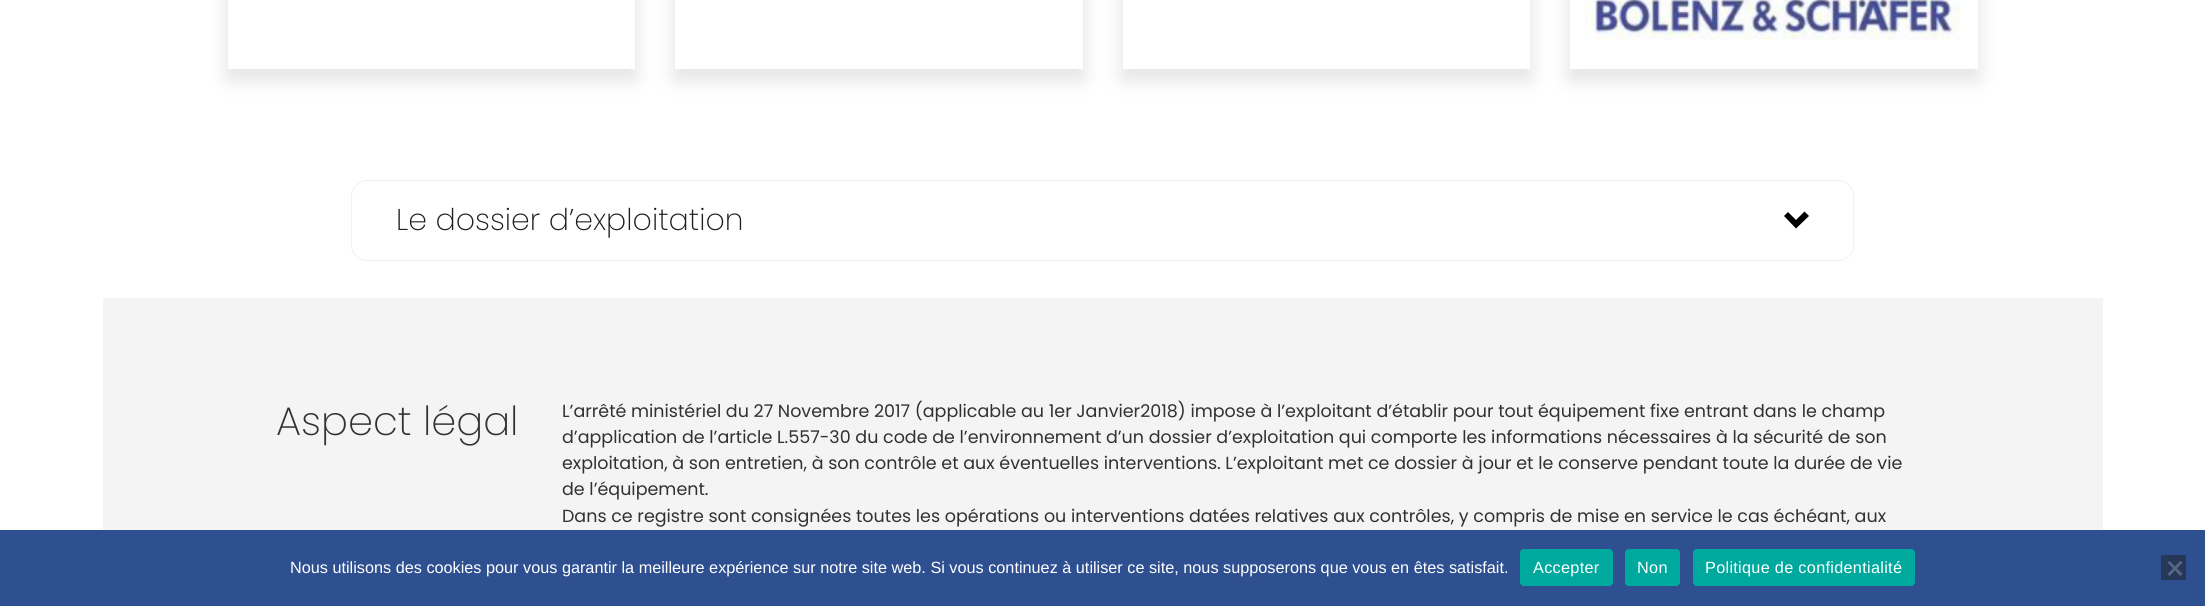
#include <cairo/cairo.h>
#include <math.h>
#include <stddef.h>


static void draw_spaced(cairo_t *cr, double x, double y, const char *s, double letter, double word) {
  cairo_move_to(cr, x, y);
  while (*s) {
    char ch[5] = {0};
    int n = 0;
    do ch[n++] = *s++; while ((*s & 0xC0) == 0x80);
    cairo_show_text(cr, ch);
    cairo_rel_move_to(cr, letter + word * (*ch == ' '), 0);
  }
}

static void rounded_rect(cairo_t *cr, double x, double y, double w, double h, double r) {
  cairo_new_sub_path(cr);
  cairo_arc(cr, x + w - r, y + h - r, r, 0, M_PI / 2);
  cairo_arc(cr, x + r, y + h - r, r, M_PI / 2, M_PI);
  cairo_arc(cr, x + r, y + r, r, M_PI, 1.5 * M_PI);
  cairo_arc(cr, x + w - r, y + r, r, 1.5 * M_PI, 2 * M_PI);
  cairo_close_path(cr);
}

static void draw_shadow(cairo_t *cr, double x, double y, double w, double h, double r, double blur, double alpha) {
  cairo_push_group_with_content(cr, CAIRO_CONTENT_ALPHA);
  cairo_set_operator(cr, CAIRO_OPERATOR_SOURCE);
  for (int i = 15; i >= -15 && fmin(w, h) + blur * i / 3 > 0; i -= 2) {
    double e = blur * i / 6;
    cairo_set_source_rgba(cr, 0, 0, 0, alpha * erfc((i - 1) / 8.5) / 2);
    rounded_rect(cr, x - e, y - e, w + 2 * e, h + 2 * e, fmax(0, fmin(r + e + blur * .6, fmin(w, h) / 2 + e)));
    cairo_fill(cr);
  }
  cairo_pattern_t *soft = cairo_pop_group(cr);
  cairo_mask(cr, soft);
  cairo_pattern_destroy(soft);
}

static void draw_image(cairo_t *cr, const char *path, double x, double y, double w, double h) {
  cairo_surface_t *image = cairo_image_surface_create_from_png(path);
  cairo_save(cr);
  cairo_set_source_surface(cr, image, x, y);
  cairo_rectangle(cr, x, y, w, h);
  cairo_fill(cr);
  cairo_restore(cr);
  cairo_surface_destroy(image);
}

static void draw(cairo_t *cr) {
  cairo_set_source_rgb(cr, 1, 1, 1);
  cairo_paint(cr);
  cairo_set_source_rgb(cr, 0, 0, 0);
  draw_shadow(cr, 228, -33, 407, 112, 0, 11, 0.12);
  cairo_set_source_rgb(cr, 1, 1, 1);
  cairo_rectangle(cr, 228, 0, 407, 69);
  cairo_fill(cr);
  cairo_set_source_rgb(cr, 0, 0, 0);
  draw_shadow(cr, 675, -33, 408, 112, 0, 11, 0.12);
  cairo_set_source_rgb(cr, 1, 1, 1);
  cairo_rectangle(cr, 675, 0, 408, 69);
  cairo_fill(cr);
  cairo_set_source_rgb(cr, 0, 0, 0);
  draw_shadow(cr, 1123, -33, 407, 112, 0, 11, 0.12);
  cairo_set_source_rgb(cr, 1, 1, 1);
  cairo_rectangle(cr, 1123, 0, 407, 69);
  cairo_fill(cr);
  cairo_set_source_rgb(cr, 0, 0, 0);
  draw_shadow(cr, 1570, -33, 408, 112, 0, 11, 0.12);
  cairo_set_source_rgb(cr, 1, 1, 1);
  cairo_rectangle(cr, 1570, 0, 408, 69);
  cairo_fill(cr);
  draw_image(cr, "images/1.png", 1585, 0, 375, 40);
  rounded_rect(cr, 351.5, 180.5, 1502, 80, 15.5);
  cairo_set_source_rgb(cr, 239 / 255.0, 240 / 255.0, 243 / 255.0);
  cairo_set_line_width(cr, 1);
  cairo_stroke(cr);
  cairo_set_source_rgb(cr, 1, 1, 1);
  rounded_rect(cr, 353, 181, 1500, 79, 15);
  cairo_fill(cr);
  cairo_set_source_rgb(cr, 0, 0, 0);
  cairo_new_path(cr);
  cairo_move_to(cr, 1804.5, 211.5);
  cairo_line_to(cr, 1796, 220);
  cairo_line_to(cr, 1788, 212);
  cairo_line_to(cr, 1784, 216);
  cairo_line_to(cr, 1796, 228.5);
  cairo_line_to(cr, 1809, 216);
  cairo_close_path(cr);
  cairo_fill(cr);
  cairo_set_source_rgb(cr, 244 / 255.0, 244 / 255.0, 244 / 255.0);
  cairo_rectangle(cr, 103, 298, 2000, 232);
  cairo_fill(cr);
  cairo_set_source_rgb(cr, 46 / 255.0, 80 / 255.0, 145 / 255.0);
  cairo_rectangle(cr, 0, 530, 2205, 76);
  cairo_fill(cr);
  cairo_set_source_rgb(cr, 0, 169 / 255.0, 157 / 255.0);
  rounded_rect(cr, 1520, 549, 93, 37, 4);
  cairo_fill(cr);
  rounded_rect(cr, 1625, 549, 55, 37, 4);
  cairo_fill(cr);
  rounded_rect(cr, 1693, 549, 222, 37, 4);
  cairo_fill(cr);
  cairo_set_source_rgb(cr, 38 / 255.0, 55 / 255.0, 87 / 255.0);
  cairo_rectangle(cr, 2161, 555, 25, 25);
  cairo_fill(cr);
  cairo_set_source_rgb(cr, 87 / 255.0, 104 / 255.0, 137 / 255.0);
  cairo_new_path(cr);
  cairo_move_to(cr, 2180.5, 561);
  cairo_line_to(cr, 2182.5, 562.5);
  cairo_line_to(cr, 2169.5, 576);
  cairo_line_to(cr, 2167.5, 574);
  cairo_close_path(cr);
  cairo_fill(cr);
  cairo_new_path(cr);
  cairo_move_to(cr, 2167.5, 562.5);
  cairo_line_to(cr, 2169.5, 561);
  cairo_line_to(cr, 2182.5, 574);
  cairo_line_to(cr, 2180.5, 576);
  cairo_close_path(cr);
  cairo_fill(cr);
  cairo_select_font_face(cr, "Poppins ExtraLight", CAIRO_FONT_SLANT_NORMAL, CAIRO_FONT_WEIGHT_NORMAL);
  cairo_set_font_size(cr, 30);
  cairo_set_source_rgb(cr, 29 / 255.0, 29 / 255.0, 29 / 255.0);
  cairo_move_to(cr, 396, 230);
  cairo_show_text(cr, "Le dossier d’exploitation");
  cairo_set_font_size(cr, 40);
  cairo_set_source_rgb(cr, 49 / 255.0, 49 / 255.0, 49 / 255.0);
  cairo_move_to(cr, 276, 435);
  cairo_show_text(cr, "Aspect légal");
  cairo_select_font_face(cr, "Poppins", CAIRO_FONT_SLANT_NORMAL, CAIRO_FONT_WEIGHT_NORMAL);
  cairo_set_font_size(cr, 17.5);
  cairo_move_to(cr, 562, 417);
  cairo_show_text(cr, "L’arrêté ministériel du 27 Novembre 2017 (applicable au 1er Janvier2018) impose à l’exploitant d’établir pour tout équipement fixe entrant dans le champ");
  cairo_move_to(cr, 562, 443);
  cairo_show_text(cr, "d’application de l’article L.557-30 du code de l’environnement d’un dossier d’exploitation qui comporte les informations nécessaires à la sécurité de son");
  cairo_move_to(cr, 562, 469);
  cairo_show_text(cr, "exploitation, à son entretien, à son contrôle et aux éventuelles interventions. L’exploitant met ce dossier à jour et le conserve pendant toute la durée de vie");
  cairo_move_to(cr, 562, 495);
  cairo_show_text(cr, "de l’équipement.");
  cairo_move_to(cr, 562, 522);
  cairo_show_text(cr, "Dans ce registre sont consignées toutes les opérations ou interventions datées relatives aux contrôles, y compris de mise en service le cas échéant, aux");
  cairo_select_font_face(cr, "Liberation Sans", CAIRO_FONT_SLANT_NORMAL, CAIRO_FONT_WEIGHT_NORMAL);
  cairo_set_font_size(cr, 16.25);
  cairo_set_source_rgb(cr, 1, 1, 1);
  cairo_move_to(cr, 290, 573);
  cairo_show_text(cr, "Nous utilisons des cookies pour vous garantir la meilleure expérience sur notre site web. Si vous continuez à utiliser ce site, nous supposerons que vous en êtes satisfait.");
  draw_spaced(cr, 1533, 573, "Accepter", 0.3, 0);
  draw_spaced(cr, 1637, 573, "Non", 0.3, 0);
  draw_spaced(cr, 1705, 573, "Politique de confidentialité", 0.3, 0);
}

int main(void) {
  cairo_surface_t *surface = cairo_image_surface_create(CAIRO_FORMAT_RGB24, 2205, 606);
  cairo_t *cr = cairo_create(surface);
  cairo_font_options_t *options = cairo_font_options_create();
  cairo_font_options_set_hint_metrics(options, CAIRO_HINT_METRICS_OFF);
  cairo_font_options_set_hint_style(options, CAIRO_HINT_STYLE_NONE);
  cairo_set_font_options(cr, options);
  cairo_set_miter_limit(cr, 4);
  draw(cr);
  cairo_surface_write_to_png(surface, "out.png");
  cairo_font_options_destroy(options);
  cairo_destroy(cr);
  cairo_surface_destroy(surface);
  return 0;
}
